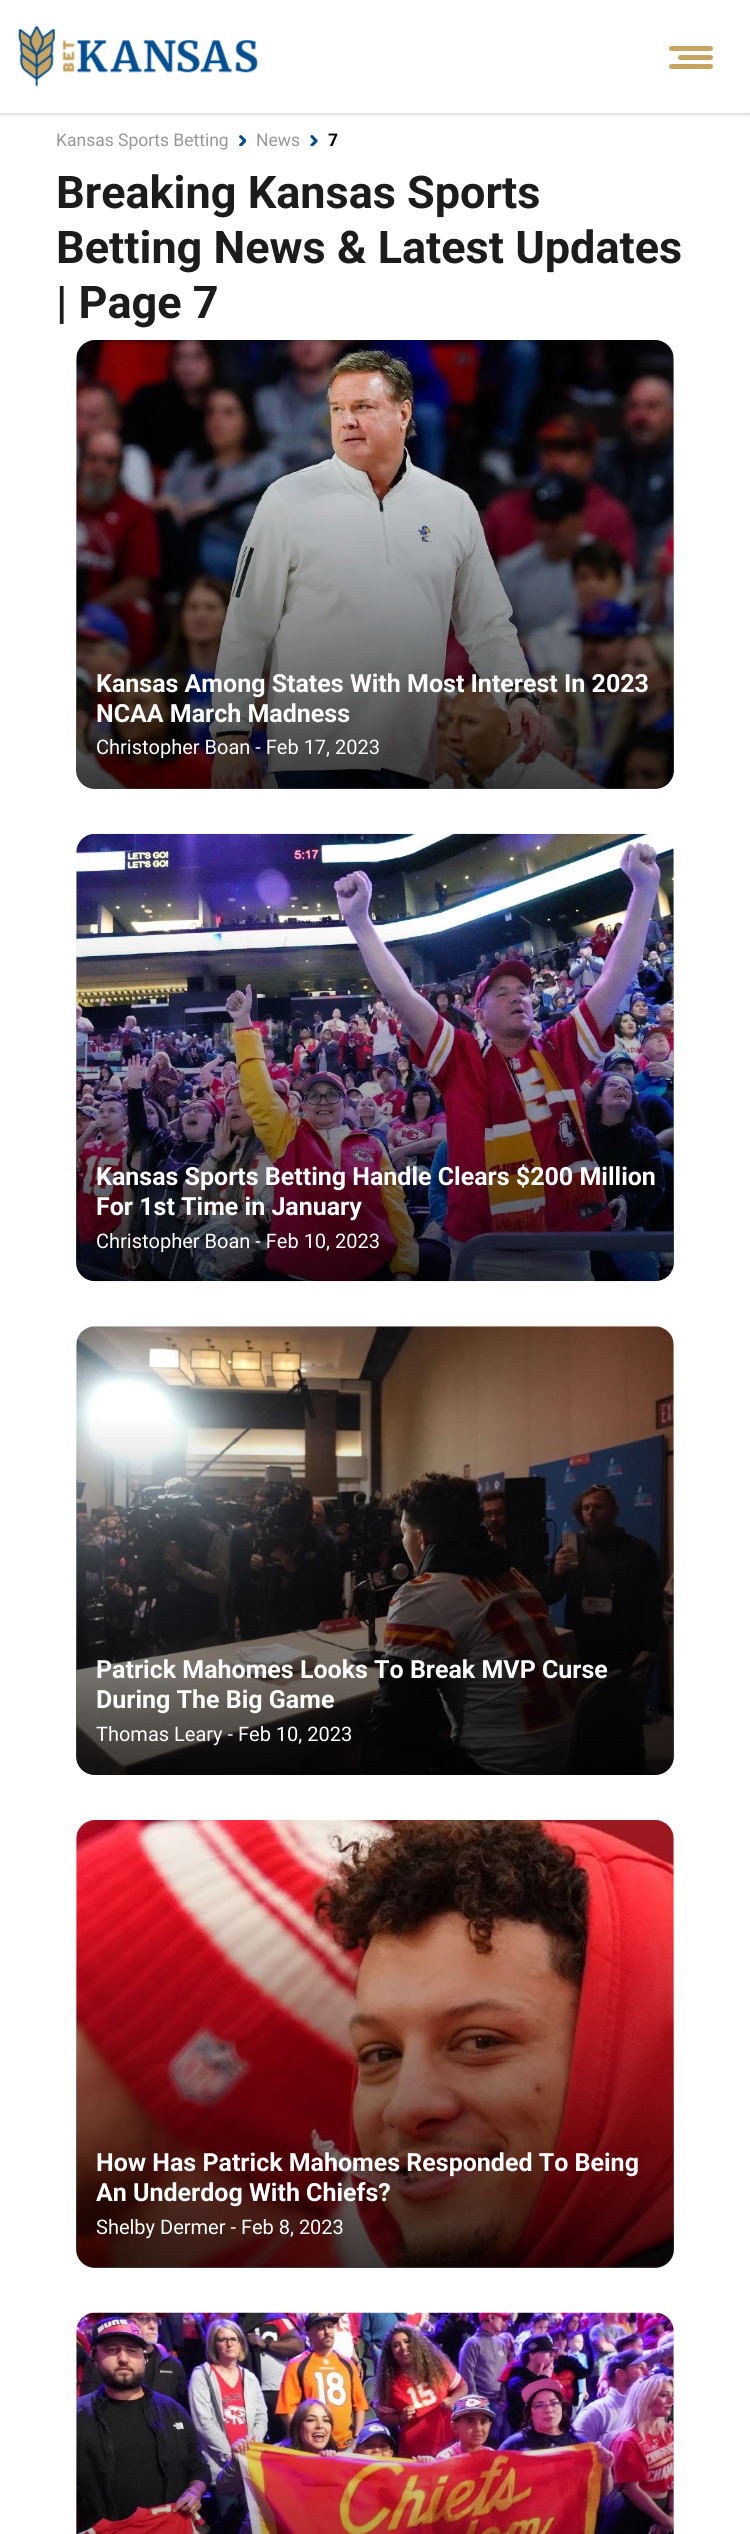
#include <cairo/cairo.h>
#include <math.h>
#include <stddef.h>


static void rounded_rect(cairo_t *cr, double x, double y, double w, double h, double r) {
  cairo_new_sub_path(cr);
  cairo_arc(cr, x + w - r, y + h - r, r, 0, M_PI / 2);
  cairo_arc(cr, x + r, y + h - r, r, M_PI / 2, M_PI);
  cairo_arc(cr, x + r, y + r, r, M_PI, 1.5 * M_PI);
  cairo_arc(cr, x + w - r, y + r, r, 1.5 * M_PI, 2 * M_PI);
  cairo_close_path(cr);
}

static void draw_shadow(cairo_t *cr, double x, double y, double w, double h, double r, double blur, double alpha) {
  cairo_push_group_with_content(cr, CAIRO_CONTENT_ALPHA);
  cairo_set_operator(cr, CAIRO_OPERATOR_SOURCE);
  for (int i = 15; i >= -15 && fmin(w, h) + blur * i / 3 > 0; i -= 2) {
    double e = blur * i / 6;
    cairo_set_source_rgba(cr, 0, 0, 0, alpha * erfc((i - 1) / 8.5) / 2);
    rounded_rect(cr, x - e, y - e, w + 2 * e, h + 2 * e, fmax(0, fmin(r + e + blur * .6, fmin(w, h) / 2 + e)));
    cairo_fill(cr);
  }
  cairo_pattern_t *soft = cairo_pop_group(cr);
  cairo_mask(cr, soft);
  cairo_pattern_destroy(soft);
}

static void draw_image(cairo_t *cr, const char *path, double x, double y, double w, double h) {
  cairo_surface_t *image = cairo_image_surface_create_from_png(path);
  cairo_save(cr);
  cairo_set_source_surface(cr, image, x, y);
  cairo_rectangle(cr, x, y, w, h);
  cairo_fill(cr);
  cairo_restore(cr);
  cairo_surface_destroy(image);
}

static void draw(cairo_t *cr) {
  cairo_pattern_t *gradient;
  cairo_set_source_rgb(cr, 1, 1, 1);
  cairo_paint(cr);
  cairo_set_source_rgb(cr, 174 / 255.0, 174 / 255.0, 174 / 255.0);
  draw_shadow(cr, 0, 0, 750, 113, 0, 2.5, 1);
  cairo_set_source_rgb(cr, 1, 1, 1);
  cairo_rectangle(cr, 0, 0, 750, 113);
  cairo_fill(cr);
  draw_image(cr, "images/1.png", 18, 26, 240, 61);
  cairo_set_source_rgb(cr, 199 / 255.0, 164 / 255.0, 97 / 255.0);
  rounded_rect(cr, 669, 46, 44, 5, 2.5);
  cairo_fill(cr);
  rounded_rect(cr, 678, 55, 35, 5, 2.5);
  cairo_fill(cr);
  rounded_rect(cr, 669, 64, 44, 5, 2.5);
  cairo_fill(cr);
  draw_image(cr, "images/2.png", 239, 135, 7, 11);
  draw_image(cr, "images/3.png", 310, 135, 8, 11);
  draw_image(cr, "images/4.png", 76, 340, 598, 449);
  gradient = cairo_pattern_create_linear(375, 340, 375, 789);
  cairo_pattern_add_color_stop_rgba(gradient, 0, 1, 1, 1, 0);
  cairo_pattern_add_color_stop_rgba(gradient, 0.2, 0, 0, 0, 0);
  cairo_pattern_add_color_stop_rgba(gradient, 1, 0, 0, 0, 0.75);
  cairo_set_source(cr, gradient);
  cairo_pattern_destroy(gradient);
  rounded_rect(cr, 76, 340, 598, 449, 19);
  cairo_fill(cr);
  draw_image(cr, "images/5.png", 76, 833, 598, 449);
  gradient = cairo_pattern_create_linear(375, 834, 375, 1281);
  cairo_pattern_add_color_stop_rgba(gradient, 0, 1, 1, 1, 0);
  cairo_pattern_add_color_stop_rgba(gradient, 0.2, 0, 0, 0, 0);
  cairo_pattern_add_color_stop_rgba(gradient, 1, 0, 0, 0, 0.75);
  cairo_set_source(cr, gradient);
  cairo_pattern_destroy(gradient);
  rounded_rect(cr, 76, 834, 598, 447, 19);
  cairo_fill(cr);
  draw_image(cr, "images/6.png", 76, 1326, 598, 449);
  gradient = cairo_pattern_create_linear(375, 1326, 375, 1775);
  cairo_pattern_add_color_stop_rgba(gradient, 0, 1, 1, 1, 0);
  cairo_pattern_add_color_stop_rgba(gradient, 0.2, 0, 0, 0, 0);
  cairo_pattern_add_color_stop_rgba(gradient, 1, 0, 0, 0, 0.75);
  cairo_set_source(cr, gradient);
  cairo_pattern_destroy(gradient);
  rounded_rect(cr, 76, 1326, 598, 449, 19);
  cairo_fill(cr);
  draw_image(cr, "images/7.png", 76, 1820, 598, 448);
  gradient = cairo_pattern_create_linear(375, 1820, 375, 2268);
  cairo_pattern_add_color_stop_rgba(gradient, 0, 1, 1, 1, 0);
  cairo_pattern_add_color_stop_rgba(gradient, 0.2, 0, 0, 0, 0);
  cairo_pattern_add_color_stop_rgba(gradient, 1, 0, 0, 0, 0.75);
  cairo_set_source(cr, gradient);
  cairo_pattern_destroy(gradient);
  rounded_rect(cr, 76, 1820, 598, 448, 19);
  cairo_fill(cr);
  draw_image(cr, "images/8.png", 76, 2312, 598, 222);
  gradient = cairo_pattern_create_linear(375, 2313, 375, 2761);
  cairo_pattern_add_color_stop_rgba(gradient, 0, 1, 1, 1, 0);
  cairo_pattern_add_color_stop_rgba(gradient, 0.2, 0, 0, 0, 0);
  cairo_pattern_add_color_stop_rgba(gradient, 1, 0, 0, 0, 0.75);
  cairo_set_source(cr, gradient);
  cairo_pattern_destroy(gradient);
  cairo_rectangle(cr, 76, 2413, 598, 121);
  cairo_fill(cr);
  cairo_select_font_face(cr, "Roboto", CAIRO_FONT_SLANT_NORMAL, CAIRO_FONT_WEIGHT_NORMAL);
  cairo_set_font_size(cr, 17.5);
  cairo_set_source_rgb(cr, 151 / 255.0, 151 / 255.0, 151 / 255.0);
  cairo_move_to(cr, 56, 146);
  cairo_show_text(cr, "Kansas Sports Betting");
  cairo_move_to(cr, 256, 146);
  cairo_show_text(cr, "News");
  cairo_select_font_face(cr, "Roboto", CAIRO_FONT_SLANT_NORMAL, CAIRO_FONT_WEIGHT_BOLD);
  cairo_set_source_rgb(cr, 0, 0, 0);
  cairo_move_to(cr, 328, 146);
  cairo_show_text(cr, "7");
  cairo_set_font_size(cr, 45);
  cairo_set_source_rgb(cr, 28 / 255.0, 28 / 255.0, 28 / 255.0);
  cairo_move_to(cr, 56, 208);
  cairo_show_text(cr, "Breaking Kansas Sports");
  cairo_move_to(cr, 56, 263);
  cairo_show_text(cr, "Betting News & Latest Updates");
  cairo_move_to(cr, 56, 318);
  cairo_show_text(cr, "| Page 7");
  cairo_set_font_size(cr, 25);
  cairo_set_source_rgb(cr, 1, 1, 1);
  cairo_move_to(cr, 96, 692);
  cairo_show_text(cr, "Kansas Among States With Most Interest In 2023");
  cairo_move_to(cr, 96, 722);
  cairo_show_text(cr, "NCAA March Madness");
  cairo_select_font_face(cr, "Roboto", CAIRO_FONT_SLANT_NORMAL, CAIRO_FONT_WEIGHT_NORMAL);
  cairo_set_font_size(cr, 20);
  cairo_move_to(cr, 96, 754);
  cairo_show_text(cr, "Christopher Boan - Feb 17, 2023");
  cairo_select_font_face(cr, "Roboto", CAIRO_FONT_SLANT_NORMAL, CAIRO_FONT_WEIGHT_BOLD);
  cairo_set_font_size(cr, 25);
  cairo_move_to(cr, 96, 1185);
  cairo_show_text(cr, "Kansas Sports Betting Handle Clears $200 Million");
  cairo_move_to(cr, 96, 1215);
  cairo_show_text(cr, "For 1st Time in January");
  cairo_select_font_face(cr, "Roboto", CAIRO_FONT_SLANT_NORMAL, CAIRO_FONT_WEIGHT_NORMAL);
  cairo_set_font_size(cr, 20);
  cairo_move_to(cr, 96, 1248);
  cairo_show_text(cr, "Christopher Boan - Feb 10, 2023");
  cairo_select_font_face(cr, "Roboto", CAIRO_FONT_SLANT_NORMAL, CAIRO_FONT_WEIGHT_BOLD);
  cairo_set_font_size(cr, 25);
  cairo_move_to(cr, 96, 1678);
  cairo_show_text(cr, "Patrick Mahomes Looks To Break MVP Curse");
  cairo_move_to(cr, 96, 1708);
  cairo_show_text(cr, "During The Big Game");
  cairo_select_font_face(cr, "Roboto", CAIRO_FONT_SLANT_NORMAL, CAIRO_FONT_WEIGHT_NORMAL);
  cairo_set_font_size(cr, 20);
  cairo_move_to(cr, 96, 1741);
  cairo_show_text(cr, "Thomas Leary - Feb 10, 2023");
  cairo_select_font_face(cr, "Roboto", CAIRO_FONT_SLANT_NORMAL, CAIRO_FONT_WEIGHT_BOLD);
  cairo_set_font_size(cr, 25);
  cairo_move_to(cr, 96, 2171);
  cairo_show_text(cr, "How Has Patrick Mahomes Responded To Being");
  cairo_move_to(cr, 96, 2201);
  cairo_show_text(cr, "An Underdog With Chiefs?");
  cairo_select_font_face(cr, "Roboto", CAIRO_FONT_SLANT_NORMAL, CAIRO_FONT_WEIGHT_NORMAL);
  cairo_set_font_size(cr, 20);
  cairo_move_to(cr, 96, 2234);
  cairo_show_text(cr, "Shelby Dermer - Feb 8, 2023");
}

int main(void) {
  cairo_surface_t *surface = cairo_image_surface_create(CAIRO_FORMAT_RGB24, 750, 2534);
  cairo_t *cr = cairo_create(surface);
  cairo_font_options_t *options = cairo_font_options_create();
  cairo_font_options_set_hint_metrics(options, CAIRO_HINT_METRICS_OFF);
  cairo_font_options_set_hint_style(options, CAIRO_HINT_STYLE_NONE);
  cairo_set_font_options(cr, options);
  cairo_set_miter_limit(cr, 4);
  draw(cr);
  cairo_surface_write_to_png(surface, "out.png");
  cairo_font_options_destroy(options);
  cairo_destroy(cr);
  cairo_surface_destroy(surface);
  return 0;
}
